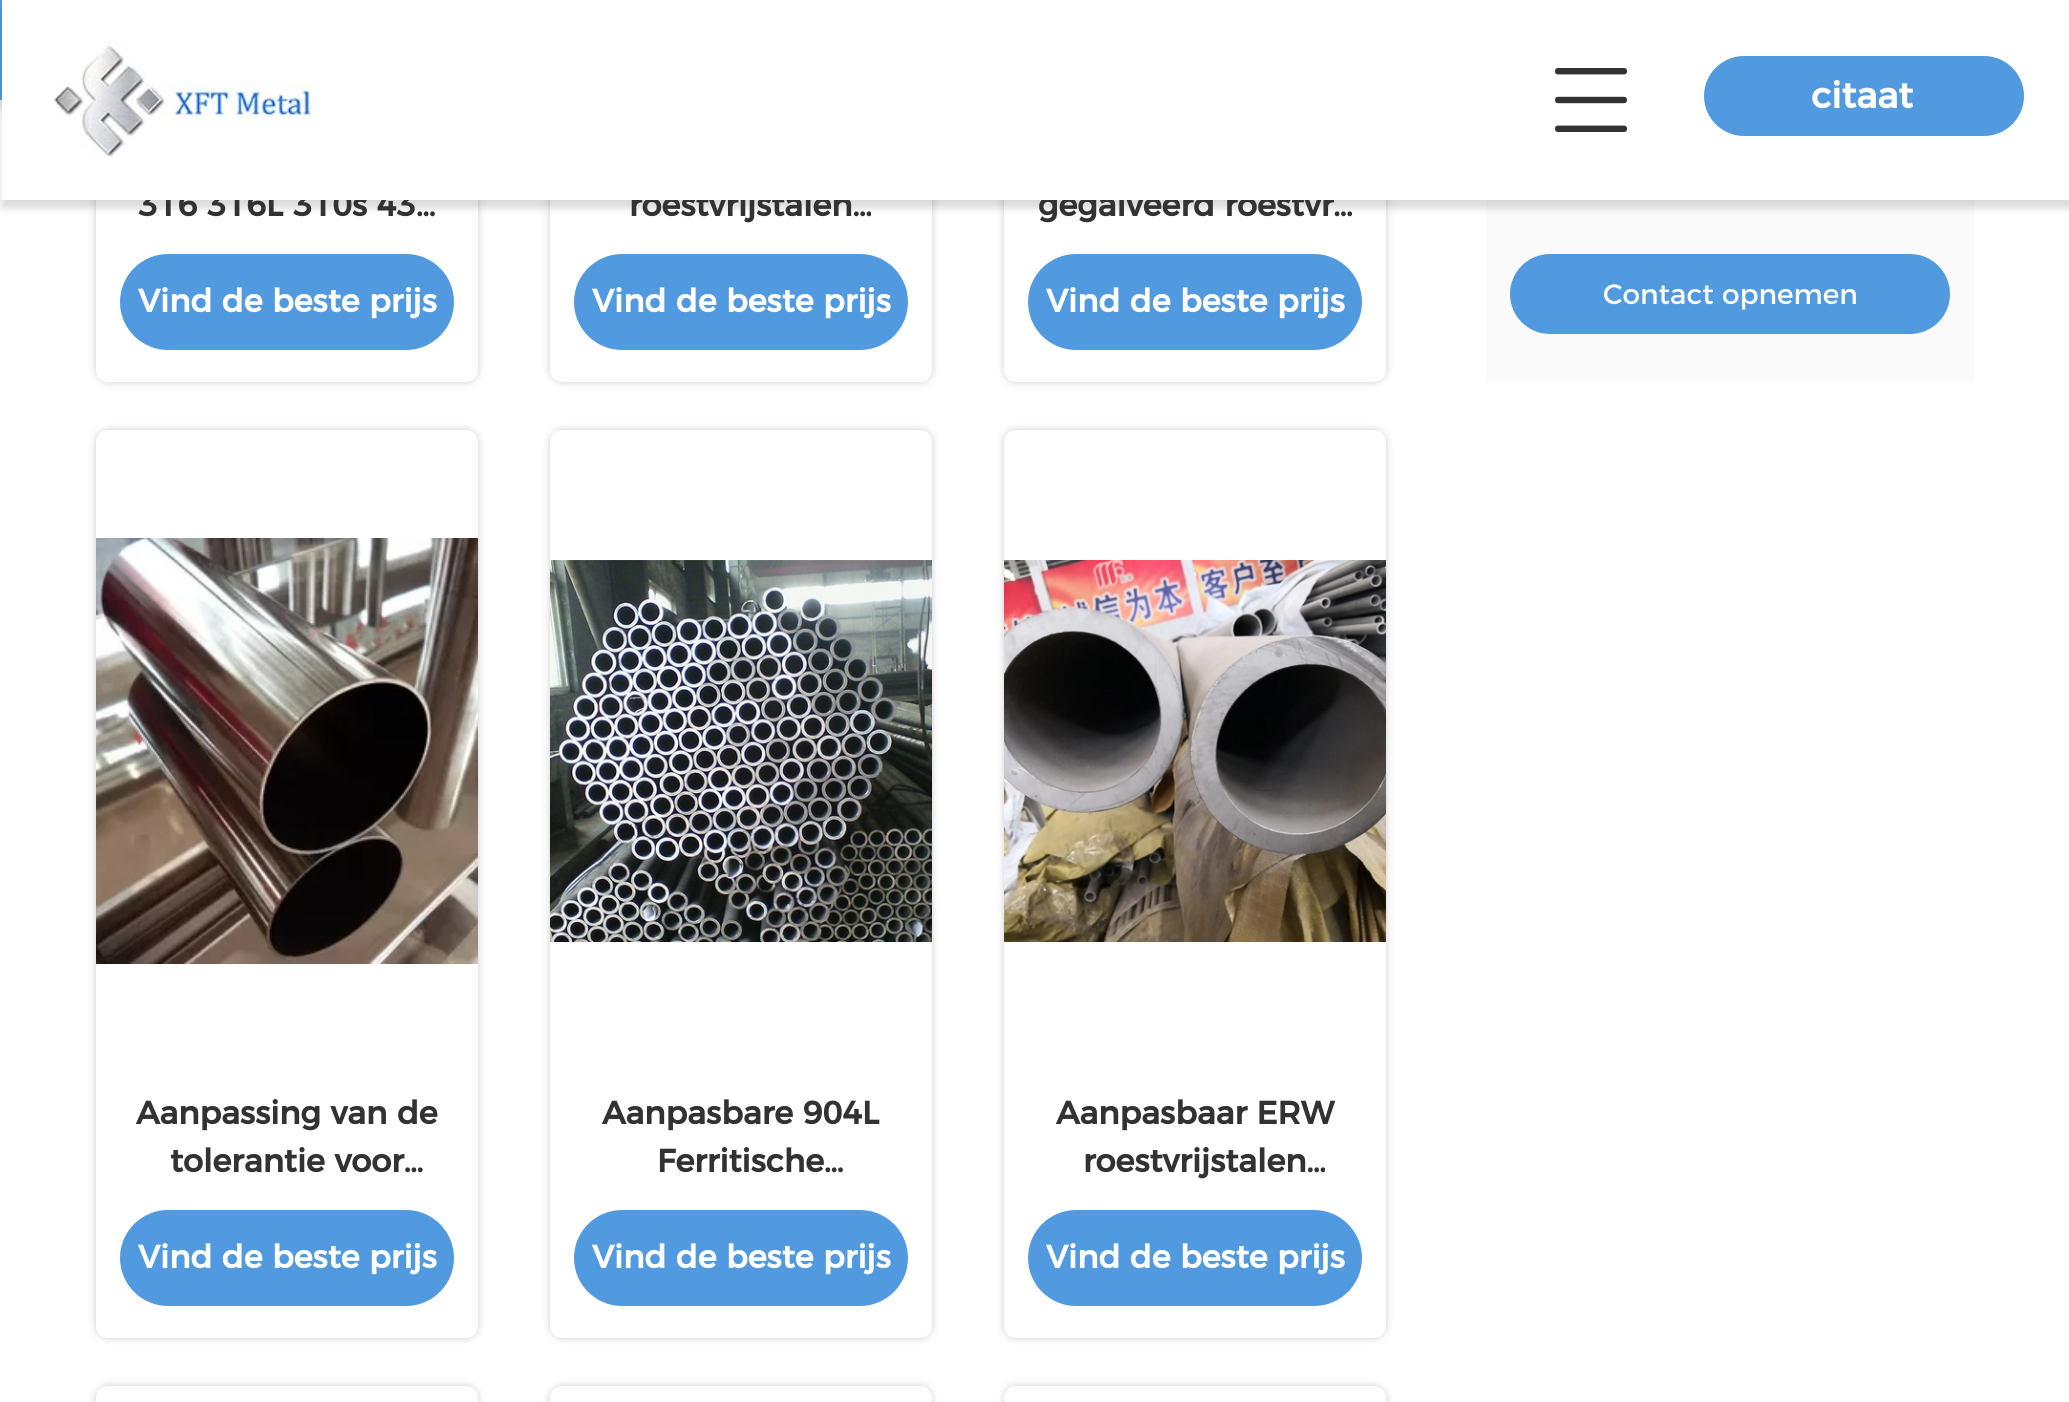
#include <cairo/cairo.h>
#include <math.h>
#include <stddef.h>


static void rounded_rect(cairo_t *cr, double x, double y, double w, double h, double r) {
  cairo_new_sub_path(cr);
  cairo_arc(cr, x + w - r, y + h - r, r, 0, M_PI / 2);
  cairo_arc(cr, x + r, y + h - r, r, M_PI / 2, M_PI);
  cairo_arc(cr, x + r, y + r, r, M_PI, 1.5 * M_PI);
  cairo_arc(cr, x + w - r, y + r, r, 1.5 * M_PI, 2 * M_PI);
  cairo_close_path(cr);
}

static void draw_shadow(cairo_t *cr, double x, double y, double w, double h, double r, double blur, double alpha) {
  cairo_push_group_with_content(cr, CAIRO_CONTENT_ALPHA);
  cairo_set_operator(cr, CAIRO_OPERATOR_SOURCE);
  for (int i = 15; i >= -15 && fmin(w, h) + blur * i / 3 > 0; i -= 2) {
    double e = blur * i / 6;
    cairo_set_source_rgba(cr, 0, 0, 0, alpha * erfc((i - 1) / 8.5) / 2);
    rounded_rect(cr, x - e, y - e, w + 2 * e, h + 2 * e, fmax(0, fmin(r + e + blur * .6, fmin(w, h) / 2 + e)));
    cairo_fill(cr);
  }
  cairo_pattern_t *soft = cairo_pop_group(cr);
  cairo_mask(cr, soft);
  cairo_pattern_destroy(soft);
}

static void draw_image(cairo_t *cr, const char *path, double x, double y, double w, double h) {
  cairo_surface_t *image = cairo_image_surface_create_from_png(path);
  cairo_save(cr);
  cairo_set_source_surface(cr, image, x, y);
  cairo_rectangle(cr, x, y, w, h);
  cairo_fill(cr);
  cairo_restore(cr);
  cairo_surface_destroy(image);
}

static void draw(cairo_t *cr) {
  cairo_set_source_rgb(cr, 1, 1, 1);
  cairo_paint(cr);
  cairo_set_source_rgb(cr, 0, 0, 0);
  draw_shadow(cr, 96, -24, 382, 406, 12, 4, 0.2);
  cairo_set_source_rgb(cr, 1, 1, 1);
  rounded_rect(cr, 96, -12, 382, 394, 12);
  cairo_fill(cr);
  cairo_set_source_rgb(cr, 0, 0, 0);
  draw_shadow(cr, 550, -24, 382, 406, 12, 4, 0.2);
  cairo_set_source_rgb(cr, 1, 1, 1);
  rounded_rect(cr, 550, -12, 382, 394, 12);
  cairo_fill(cr);
  cairo_set_source_rgb(cr, 0, 0, 0);
  draw_shadow(cr, 1004, -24, 382, 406, 12, 4, 0.2);
  cairo_set_source_rgb(cr, 1, 1, 1);
  rounded_rect(cr, 1004, -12, 382, 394, 12);
  cairo_fill(cr);
  cairo_set_source_rgb(cr, 0, 0, 0);
  draw_shadow(cr, 0, 8, 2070, 100, 0, 4, 0.15);
  cairo_set_source_rgb(cr, 81 / 255.0, 154 / 255.0, 224 / 255.0);
  cairo_rectangle(cr, 0, 0, 2, 100);
  cairo_fill(cr);
  cairo_set_source_rgb(cr, 250 / 255.0, 250 / 255.0, 250 / 255.0);
  cairo_rectangle(cr, 1486, 200, 488, 182);
  cairo_fill(cr);
  cairo_set_source_rgb(cr, 0, 0, 0);
  draw_shadow(cr, 2, 8, 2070, 200, 0, 4, 0.15);
  cairo_set_source_rgb(cr, 81 / 255.0, 154 / 255.0, 224 / 255.0);
  rounded_rect(cr, 120, 254, 334, 96, 48);
  cairo_fill(cr);
  rounded_rect(cr, 574, 254, 334, 96, 48);
  cairo_fill(cr);
  rounded_rect(cr, 1028, 254, 334, 96, 48);
  cairo_fill(cr);
  cairo_set_source_rgb(cr, 0, 0, 0);
  draw_shadow(cr, 96, 430, 382, 908, 12, 4, 0.2);
  cairo_set_source_rgb(cr, 1, 1, 1);
  rounded_rect(cr, 96, 430, 382, 908, 12);
  cairo_fill(cr);
  draw_image(cr, "images/3.png", 96, 538, 382, 426);
  cairo_set_source_rgb(cr, 81 / 255.0, 154 / 255.0, 224 / 255.0);
  rounded_rect(cr, 120, 1210, 334, 96, 48);
  cairo_fill(cr);
  cairo_set_source_rgb(cr, 0, 0, 0);
  draw_shadow(cr, 550, 430, 382, 908, 12, 4, 0.2);
  cairo_set_source_rgb(cr, 1, 1, 1);
  rounded_rect(cr, 550, 430, 382, 908, 12);
  cairo_fill(cr);
  draw_image(cr, "images/4.png", 550, 560, 382, 382);
  cairo_set_source_rgb(cr, 81 / 255.0, 154 / 255.0, 224 / 255.0);
  rounded_rect(cr, 574, 1210, 334, 96, 48);
  cairo_fill(cr);
  cairo_set_source_rgb(cr, 0, 0, 0);
  draw_shadow(cr, 1004, 430, 382, 908, 12, 4, 0.2);
  cairo_set_source_rgb(cr, 1, 1, 1);
  rounded_rect(cr, 1004, 430, 382, 908, 12);
  cairo_fill(cr);
  draw_image(cr, "images/5.png", 1004, 560, 382, 382);
  cairo_set_source_rgb(cr, 81 / 255.0, 154 / 255.0, 224 / 255.0);
  rounded_rect(cr, 1028, 1210, 334, 96, 48);
  cairo_fill(cr);
  cairo_set_source_rgb(cr, 0, 0, 0);
  draw_shadow(cr, 96, 1386, 382, 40, 12, 4, 0.2);
  cairo_set_source_rgb(cr, 1, 1, 1);
  rounded_rect(cr, 96, 1386, 382, 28, 12);
  cairo_fill(cr);
  cairo_set_source_rgb(cr, 0, 0, 0);
  draw_shadow(cr, 550, 1386, 382, 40, 12, 4, 0.2);
  cairo_set_source_rgb(cr, 1, 1, 1);
  rounded_rect(cr, 550, 1386, 382, 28, 12);
  cairo_fill(cr);
  cairo_set_source_rgb(cr, 0, 0, 0);
  draw_shadow(cr, 1004, 1386, 382, 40, 12, 4, 0.2);
  cairo_set_source_rgb(cr, 1, 1, 1);
  rounded_rect(cr, 1004, 1386, 382, 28, 12);
  cairo_fill(cr);
  cairo_set_source_rgb(cr, 81 / 255.0, 154 / 255.0, 224 / 255.0);
  rounded_rect(cr, 1510, 254, 440, 80, 40);
  cairo_fill(cr);
  cairo_select_font_face(cr, "Montserrat", CAIRO_FONT_SLANT_NORMAL, CAIRO_FONT_WEIGHT_BOLD);
  cairo_set_font_size(cr, 32);
  cairo_set_source_rgb(cr, 50 / 255.0, 50 / 255.0, 50 / 255.0);
  cairo_move_to(cr, 138, 216);
  cairo_show_text(cr, "316 316L 310s 43…");
  cairo_set_source_rgb(cr, 1, 1, 1);
  cairo_move_to(cr, 138, 312);
  cairo_show_text(cr, "Vind de beste prijs");
  cairo_set_source_rgb(cr, 50 / 255.0, 50 / 255.0, 50 / 255.0);
  cairo_move_to(cr, 629, 216);
  cairo_show_text(cr, "roestvrijstalen…");
  cairo_set_source_rgb(cr, 1, 1, 1);
  cairo_move_to(cr, 592, 312);
  cairo_show_text(cr, "Vind de beste prijs");
  cairo_set_source_rgb(cr, 50 / 255.0, 50 / 255.0, 50 / 255.0);
  cairo_move_to(cr, 1038, 216);
  cairo_show_text(cr, "gegalveerd roestvr…");
  cairo_set_source_rgb(cr, 1, 1, 1);
  cairo_rectangle(cr, 2, 0, 2067, 200);
  cairo_fill(cr);
  draw_image(cr, "images/1.png", 49, 40, 268, 119);
  cairo_set_source_rgb(cr, 81 / 255.0, 154 / 255.0, 224 / 255.0);
  rounded_rect(cr, 1704, 56, 320, 80, 40);
  cairo_fill(cr);
  cairo_set_font_size(cr, 36);
  cairo_set_source_rgb(cr, 1, 1, 1);
  cairo_move_to(cr, 1811, 108);
  cairo_show_text(cr, "citaat");
  draw_image(cr, "images/2.png", 1555, 68, 72, 64);
  cairo_set_font_size(cr, 32);
  cairo_move_to(cr, 1046, 312);
  cairo_show_text(cr, "Vind de beste prijs");
  cairo_set_source_rgb(cr, 50 / 255.0, 50 / 255.0, 50 / 255.0);
  cairo_move_to(cr, 136, 1124);
  cairo_show_text(cr, "Aanpassing van de");
  cairo_move_to(cr, 170, 1172);
  cairo_show_text(cr, "tolerantie voor…");
  cairo_set_source_rgb(cr, 1, 1, 1);
  cairo_move_to(cr, 138, 1268);
  cairo_show_text(cr, "Vind de beste prijs");
  cairo_set_source_rgb(cr, 50 / 255.0, 50 / 255.0, 50 / 255.0);
  cairo_move_to(cr, 602, 1124);
  cairo_show_text(cr, "Aanpasbare 904L");
  cairo_move_to(cr, 657, 1172);
  cairo_show_text(cr, "Ferritische…");
  cairo_set_source_rgb(cr, 1, 1, 1);
  cairo_move_to(cr, 592, 1268);
  cairo_show_text(cr, "Vind de beste prijs");
  cairo_set_source_rgb(cr, 50 / 255.0, 50 / 255.0, 50 / 255.0);
  cairo_move_to(cr, 1056, 1124);
  cairo_show_text(cr, "Aanpasbaar ERW");
  cairo_move_to(cr, 1083, 1172);
  cairo_show_text(cr, "roestvrijstalen…");
  cairo_set_source_rgb(cr, 1, 1, 1);
  cairo_move_to(cr, 1046, 1268);
  cairo_show_text(cr, "Vind de beste prijs");
  cairo_select_font_face(cr, "Montserrat", CAIRO_FONT_SLANT_NORMAL, CAIRO_FONT_WEIGHT_NORMAL);
  cairo_set_font_size(cr, 28);
  cairo_move_to(cr, 1603, 304);
  cairo_show_text(cr, "Contact opnemen");
}

int main(void) {
  cairo_surface_t *surface = cairo_image_surface_create(CAIRO_FORMAT_RGB24, 2069, 1402);
  cairo_t *cr = cairo_create(surface);
  cairo_font_options_t *options = cairo_font_options_create();
  cairo_font_options_set_hint_metrics(options, CAIRO_HINT_METRICS_OFF);
  cairo_font_options_set_hint_style(options, CAIRO_HINT_STYLE_NONE);
  cairo_set_font_options(cr, options);
  cairo_set_miter_limit(cr, 4);
  draw(cr);
  cairo_surface_write_to_png(surface, "out.png");
  cairo_font_options_destroy(options);
  cairo_destroy(cr);
  cairo_surface_destroy(surface);
  return 0;
}
